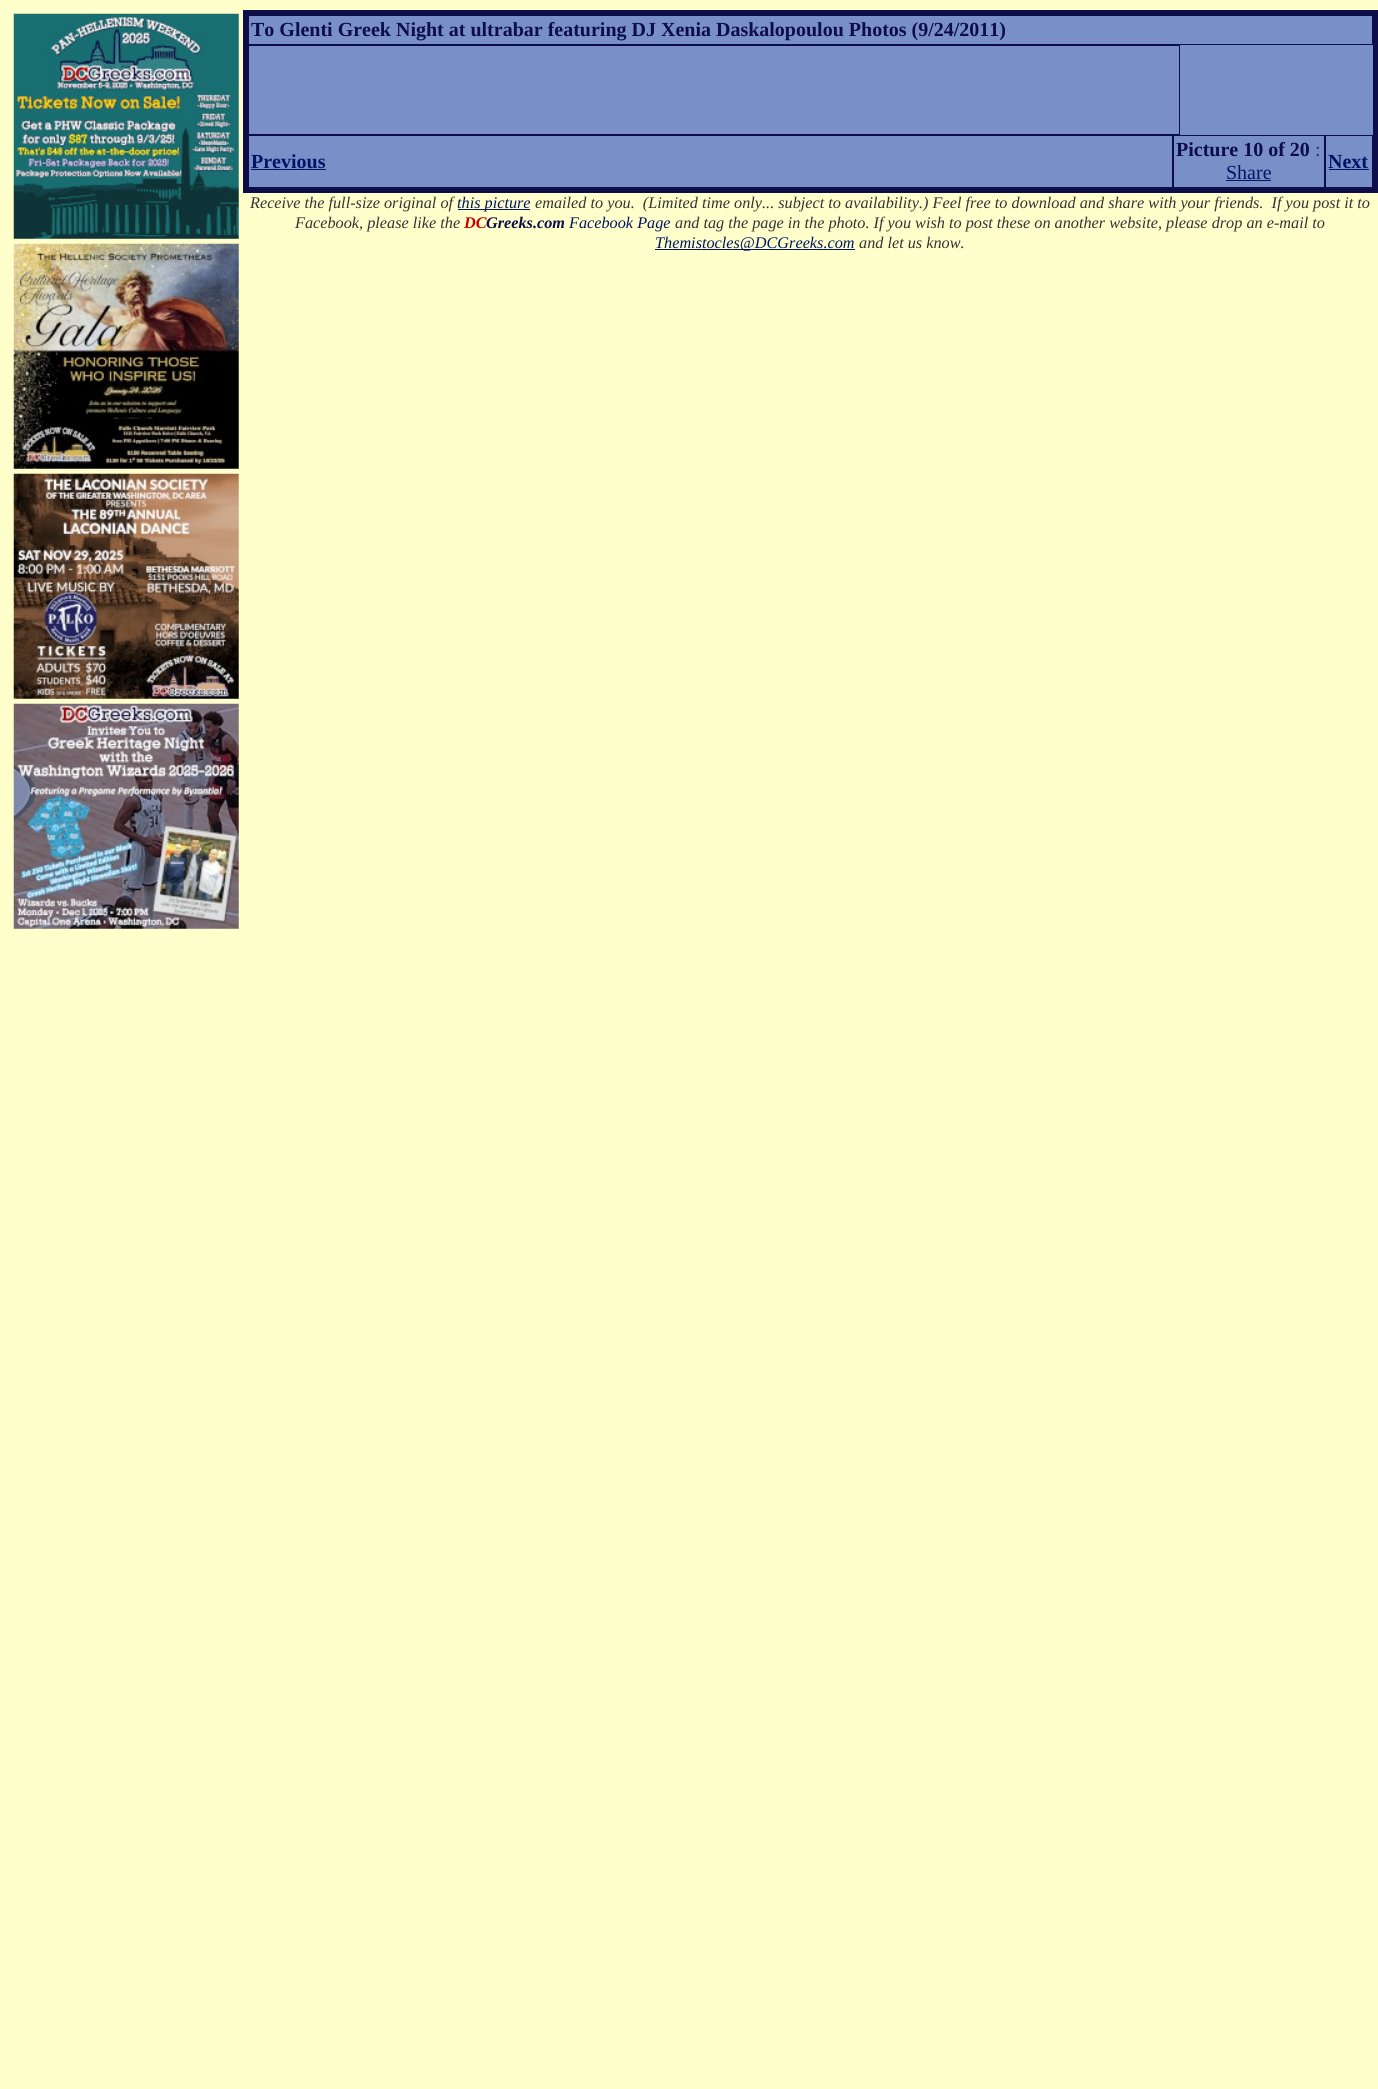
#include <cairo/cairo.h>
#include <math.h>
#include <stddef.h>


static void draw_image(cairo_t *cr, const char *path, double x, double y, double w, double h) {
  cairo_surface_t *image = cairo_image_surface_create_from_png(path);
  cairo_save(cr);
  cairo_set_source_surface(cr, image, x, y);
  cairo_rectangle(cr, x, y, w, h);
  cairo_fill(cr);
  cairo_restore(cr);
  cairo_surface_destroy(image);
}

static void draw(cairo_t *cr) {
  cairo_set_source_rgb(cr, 1, 1, 204 / 255.0);
  cairo_paint(cr);
  draw_image(cr, "images/1.png", 13, 13, 226, 226);
  draw_image(cr, "images/2.png", 13, 243, 226, 226);
  draw_image(cr, "images/3.png", 13, 473, 226, 226);
  draw_image(cr, "images/4.png", 13, 703, 226, 226);
  cairo_set_source_rgb(cr, 121 / 255.0, 143 / 255.0, 200 / 255.0);
  cairo_rectangle(cr, 249, 16, 1124, 171);
  cairo_fill(cr);
  cairo_rectangle(cr, 245.5, 12.5, 1130, 178);
  cairo_set_source_rgb(cr, 13 / 255.0, 13 / 255.0, 74 / 255.0);
  cairo_set_line_width(cr, 5);
  cairo_stroke(cr);
  cairo_rectangle(cr, 248.5, 15.5, 1124, 29);
  cairo_set_line_width(cr, 1);
  cairo_stroke(cr);
  cairo_rectangle(cr, 248.5, 45.5, 931, 89);
  cairo_stroke(cr);
  cairo_rectangle(cr, 248.5, 135.5, 924, 52);
  cairo_stroke(cr);
  cairo_set_source_rgb(cr, 0, 22 / 255.0, 100 / 255.0);
  cairo_rectangle(cr, 251, 169, 75, 1);
  cairo_fill(cr);
  cairo_rectangle(cr, 1173.5, 135.5, 151, 52);
  cairo_set_source_rgb(cr, 13 / 255.0, 13 / 255.0, 74 / 255.0);
  cairo_stroke(cr);
  cairo_set_source_rgb(cr, 0, 22 / 255.0, 100 / 255.0);
  cairo_rectangle(cr, 1226, 180, 45, 1);
  cairo_fill(cr);
  cairo_rectangle(cr, 1325.5, 135.5, 47, 52);
  cairo_set_source_rgb(cr, 13 / 255.0, 13 / 255.0, 74 / 255.0);
  cairo_stroke(cr);
  cairo_set_source_rgb(cr, 0, 22 / 255.0, 100 / 255.0);
  cairo_rectangle(cr, 1329, 169, 40, 1);
  cairo_fill(cr);
  cairo_rectangle(cr, 458, 209, 72, 1);
  cairo_fill(cr);
  cairo_rectangle(cr, 655, 249, 200, 1);
  cairo_fill(cr);
  cairo_select_font_face(cr, "Liberation Serif", CAIRO_FONT_SLANT_NORMAL, CAIRO_FONT_WEIGHT_BOLD);
  cairo_set_font_size(cr, 20);
  cairo_set_source_rgb(cr, 13 / 255.0, 13 / 255.0, 74 / 255.0);
  cairo_move_to(cr, 251, 36);
  cairo_show_text(cr, "To Glenti Greek Night at ultrabar featuring DJ Xenia Daskalopoulou Photos (9/24/2011)");
  cairo_set_source_rgb(cr, 0, 22 / 255.0, 100 / 255.0);
  cairo_move_to(cr, 251, 168);
  cairo_show_text(cr, "Previous");
  cairo_set_source_rgb(cr, 13 / 255.0, 13 / 255.0, 74 / 255.0);
  cairo_move_to(cr, 1176, 156);
  cairo_show_text(cr, "Picture 10 of 20");
  cairo_select_font_face(cr, "Liberation Serif", CAIRO_FONT_SLANT_NORMAL, CAIRO_FONT_WEIGHT_NORMAL);
  cairo_set_source_rgb(cr, 51 / 255.0, 51 / 255.0, 51 / 255.0);
  cairo_move_to(cr, 1315, 156);
  cairo_show_text(cr, ":");
  cairo_set_source_rgb(cr, 0, 22 / 255.0, 100 / 255.0);
  cairo_move_to(cr, 1226, 179);
  cairo_show_text(cr, "Share");
  cairo_select_font_face(cr, "Liberation Serif", CAIRO_FONT_SLANT_NORMAL, CAIRO_FONT_WEIGHT_BOLD);
  cairo_move_to(cr, 1328, 168);
  cairo_show_text(cr, "Next");
  cairo_select_font_face(cr, "Liberation Serif", CAIRO_FONT_SLANT_ITALIC, CAIRO_FONT_WEIGHT_NORMAL);
  cairo_set_font_size(cr, 16.25);
  cairo_set_source_rgb(cr, 51 / 255.0, 51 / 255.0, 51 / 255.0);
  cairo_move_to(cr, 250, 208);
  cairo_show_text(cr, "Receive the full-size original of");
  cairo_set_source_rgb(cr, 0, 22 / 255.0, 100 / 255.0);
  cairo_move_to(cr, 457, 208);
  cairo_show_text(cr, "this picture");
  cairo_set_source_rgb(cr, 51 / 255.0, 51 / 255.0, 51 / 255.0);
  cairo_move_to(cr, 535, 208);
  cairo_show_text(cr, "emailed to you.  (Limited time only... subject to availability.) Feel free to download and share with your friends.  If you post it to");
  cairo_move_to(cr, 295, 228);
  cairo_show_text(cr, "Facebook, please like the");
  cairo_select_font_face(cr, "Liberation Serif", CAIRO_FONT_SLANT_ITALIC, CAIRO_FONT_WEIGHT_BOLD);
  cairo_set_source_rgb(cr, 200 / 255.0, 0, 0);
  cairo_move_to(cr, 464, 228);
  cairo_show_text(cr, "DC");
  cairo_set_source_rgb(cr, 13 / 255.0, 13 / 255.0, 74 / 255.0);
  cairo_move_to(cr, 486, 228);
  cairo_show_text(cr, "Greeks.com");
  cairo_select_font_face(cr, "Liberation Serif", CAIRO_FONT_SLANT_ITALIC, CAIRO_FONT_WEIGHT_NORMAL);
  cairo_set_source_rgb(cr, 0, 22 / 255.0, 100 / 255.0);
  cairo_move_to(cr, 569, 228);
  cairo_show_text(cr, "Facebook Page");
  cairo_set_source_rgb(cr, 51 / 255.0, 51 / 255.0, 51 / 255.0);
  cairo_move_to(cr, 675, 228);
  cairo_show_text(cr, "and tag the page in the photo. If you wish to post these on another website, please drop an e-mail to");
  cairo_set_source_rgb(cr, 0, 22 / 255.0, 100 / 255.0);
  cairo_move_to(cr, 655, 248);
  cairo_show_text(cr, "Themistocles@DCGreeks.com");
  cairo_set_source_rgb(cr, 51 / 255.0, 51 / 255.0, 51 / 255.0);
  cairo_move_to(cr, 859, 248);
  cairo_show_text(cr, "and let us know.");
}

int main(void) {
  cairo_surface_t *surface = cairo_image_surface_create(CAIRO_FORMAT_RGB24, 1378, 2089);
  cairo_t *cr = cairo_create(surface);
  cairo_font_options_t *options = cairo_font_options_create();
  cairo_font_options_set_hint_metrics(options, CAIRO_HINT_METRICS_OFF);
  cairo_font_options_set_hint_style(options, CAIRO_HINT_STYLE_NONE);
  cairo_set_font_options(cr, options);
  cairo_set_miter_limit(cr, 4);
  draw(cr);
  cairo_surface_write_to_png(surface, "out.png");
  cairo_font_options_destroy(options);
  cairo_destroy(cr);
  cairo_surface_destroy(surface);
  return 0;
}
